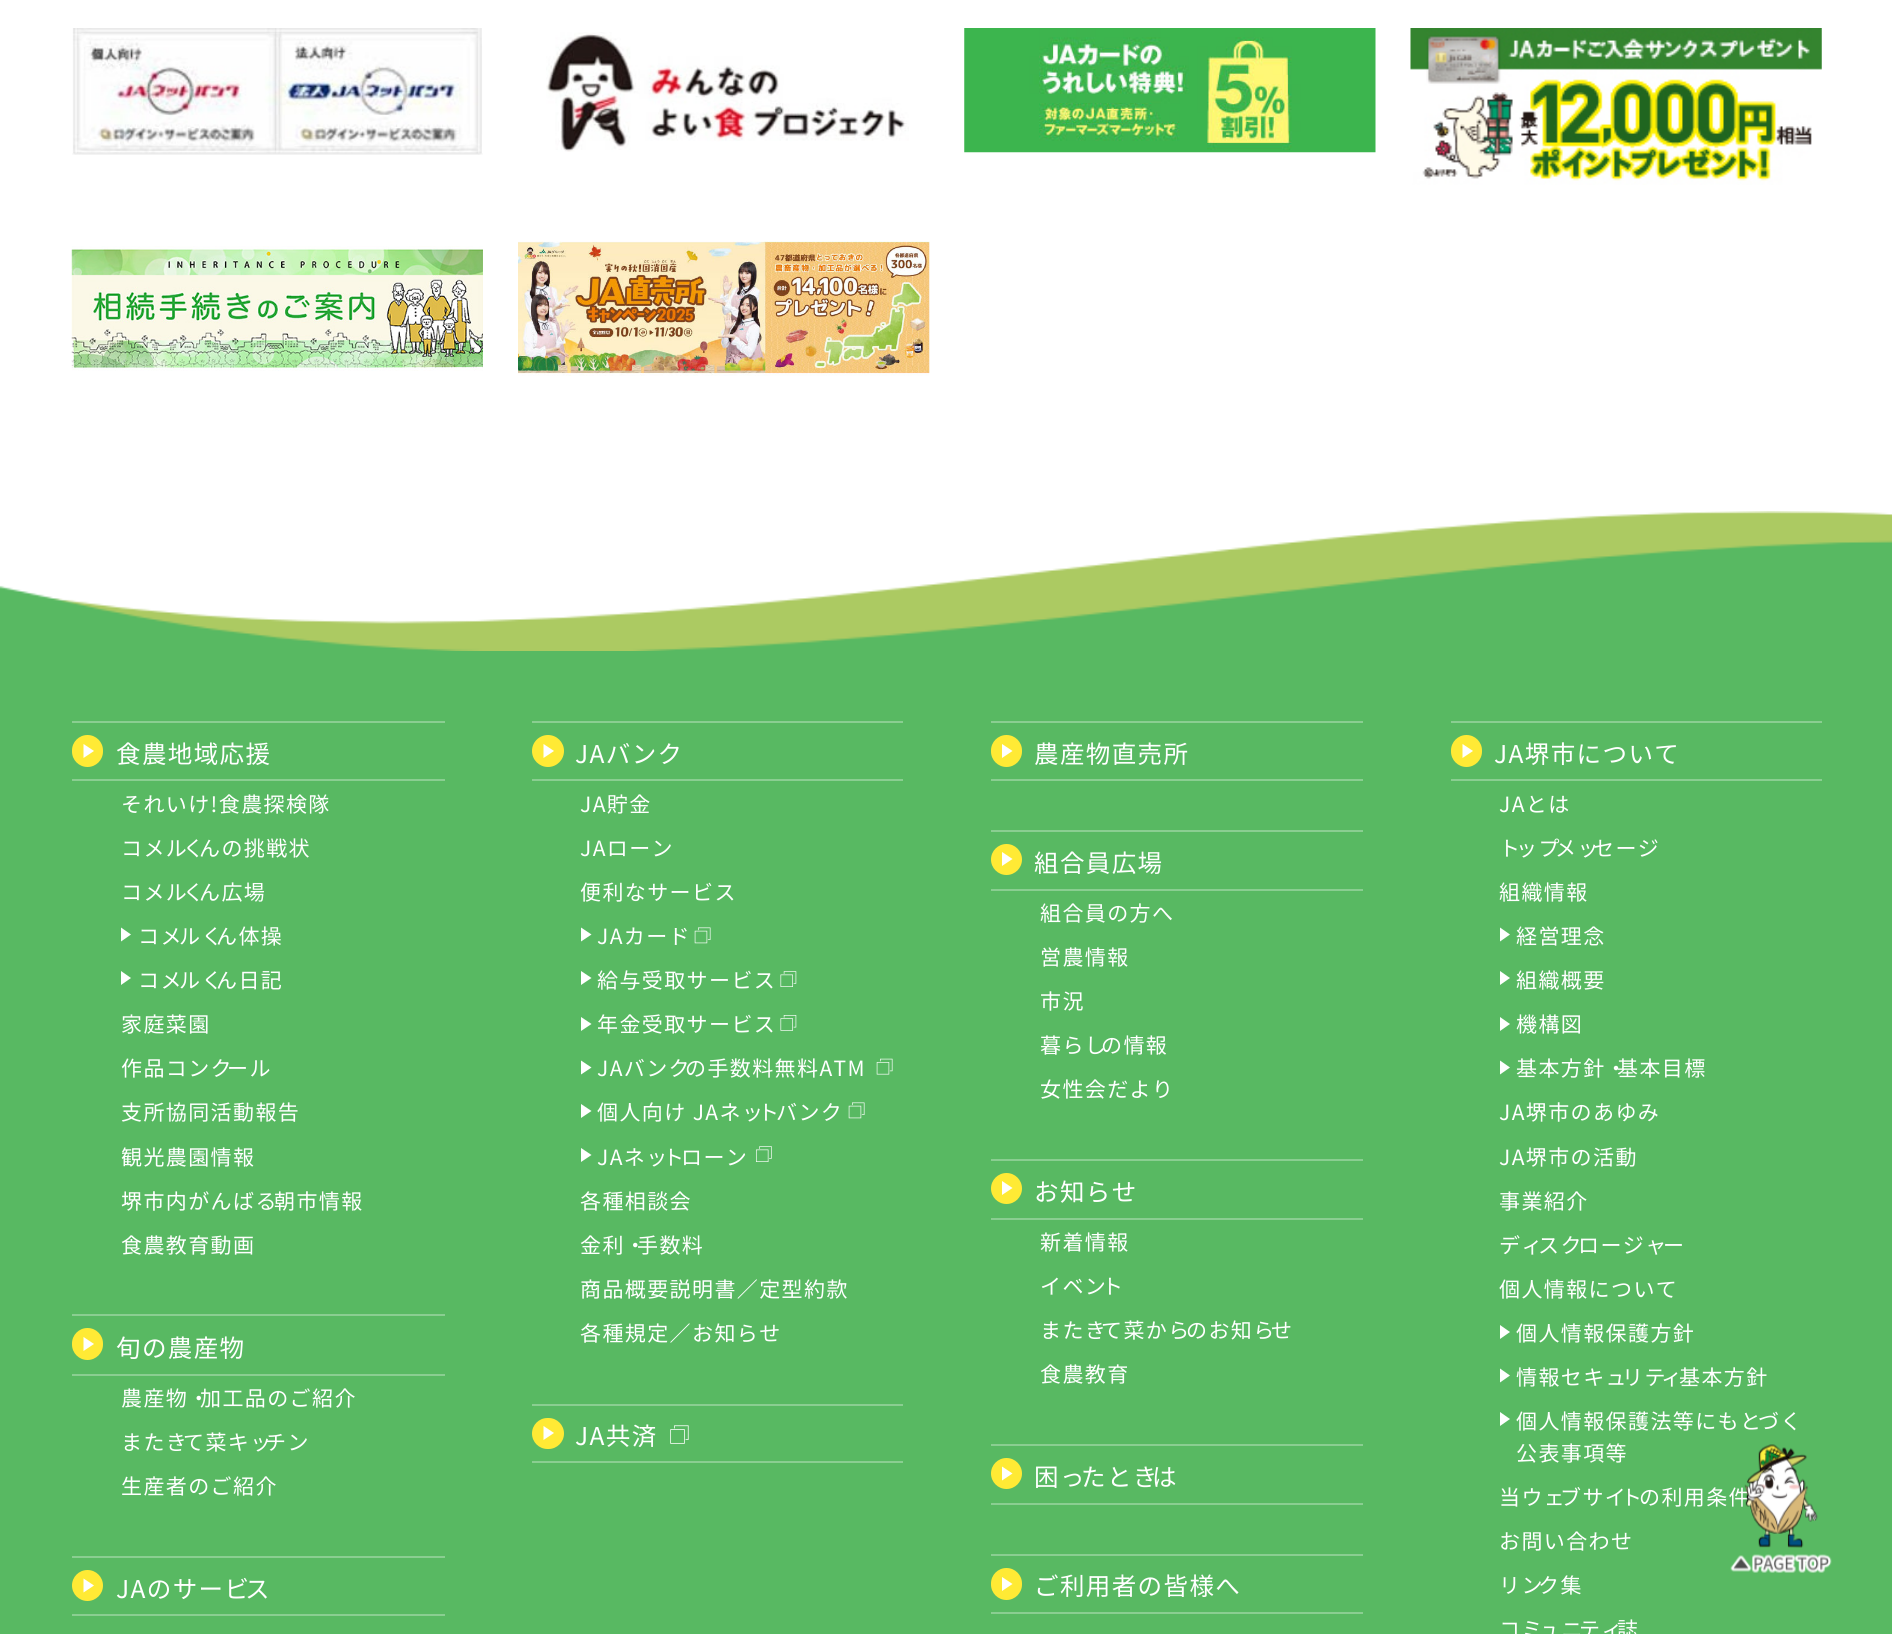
#include <cairo/cairo.h>
#include <math.h>
#include <stddef.h>


static void draw_spaced(cairo_t *cr, double x, double y, const char *s, double letter, double word) {
  cairo_move_to(cr, x, y);
  while (*s) {
    char ch[5] = {0};
    int n = 0;
    do ch[n++] = *s++; while ((*s & 0xC0) == 0x80);
    cairo_show_text(cr, ch);
    cairo_rel_move_to(cr, letter + word * (*ch == ' '), 0);
  }
}

static void rounded_rect(cairo_t *cr, double x, double y, double w, double h, double r) {
  cairo_new_sub_path(cr);
  cairo_arc(cr, x + w - r, y + h - r, r, 0, M_PI / 2);
  cairo_arc(cr, x + r, y + h - r, r, M_PI / 2, M_PI);
  cairo_arc(cr, x + r, y + r, r, M_PI, 1.5 * M_PI);
  cairo_arc(cr, x + w - r, y + r, r, 1.5 * M_PI, 2 * M_PI);
  cairo_close_path(cr);
}

static void draw_image(cairo_t *cr, const char *path, double x, double y, double w, double h) {
  cairo_surface_t *image = cairo_image_surface_create_from_png(path);
  cairo_save(cr);
  cairo_set_source_surface(cr, image, x, y);
  cairo_rectangle(cr, x, y, w, h);
  cairo_fill(cr);
  cairo_restore(cr);
  cairo_surface_destroy(image);
}

static void draw(cairo_t *cr) {
  cairo_set_source_rgb(cr, 1, 1, 1);
  cairo_paint(cr);
  draw_image(cr, "images/1.png", 72, 28, 411, 127);
  draw_image(cr, "images/2.png", 546, 32, 363, 120);
  draw_image(cr, "images/3.png", 964, 28, 412, 125);
  draw_image(cr, "images/4.png", 1410, 28, 412, 157);
  draw_image(cr, "images/5.png", 71, 246, 412, 125);
  draw_image(cr, "images/6.png", 518, 241, 412, 135);
  cairo_set_source_rgb(cr, 88 / 255.0, 185 / 255.0, 98 / 255.0);
  cairo_rectangle(cr, 0, 651, 1892, 983);
  cairo_fill(cr);
  draw_image(cr, "images/7.png", 0, 511, 1892, 140);
  cairo_set_source_rgb(cr, 138 / 255.0, 206 / 255.0, 145 / 255.0);
  cairo_rectangle(cr, 72, 721, 373, 2);
  cairo_fill(cr);
  cairo_rectangle(cr, 72, 779, 373, 2);
  cairo_fill(cr);
  cairo_set_source_rgb(cr, 1, 234 / 255.0, 53 / 255.0);
  rounded_rect(cr, 72, 735, 31, 32, 15.5);
  cairo_fill(cr);
  cairo_set_source_rgb(cr, 1, 1, 1);
  cairo_new_path(cr);
  cairo_move_to(cr, 83.5, 758);
  cairo_line_to(cr, 83.5, 744);
  cairo_line_to(cr, 94, 751);
  cairo_close_path(cr);
  cairo_fill(cr);
  cairo_new_path(cr);
  cairo_move_to(cr, 121, 941.5);
  cairo_line_to(cr, 121, 927.5);
  cairo_line_to(cr, 131, 934.5);
  cairo_close_path(cr);
  cairo_move_to(cr, 121, 985);
  cairo_line_to(cr, 121, 971);
  cairo_line_to(cr, 131, 978);
  cairo_close_path(cr);
  cairo_fill(cr);
  cairo_set_source_rgb(cr, 138 / 255.0, 206 / 255.0, 145 / 255.0);
  cairo_rectangle(cr, 72, 1314, 373, 2);
  cairo_fill(cr);
  cairo_rectangle(cr, 72, 1374, 373, 2);
  cairo_fill(cr);
  cairo_set_source_rgb(cr, 1, 234 / 255.0, 53 / 255.0);
  rounded_rect(cr, 72, 1328, 31, 32, 15.5);
  cairo_fill(cr);
  cairo_set_source_rgb(cr, 1, 1, 1);
  cairo_new_path(cr);
  cairo_move_to(cr, 83.5, 1351);
  cairo_line_to(cr, 83.5, 1337);
  cairo_line_to(cr, 94, 1344);
  cairo_close_path(cr);
  cairo_fill(cr);
  cairo_set_source_rgb(cr, 138 / 255.0, 206 / 255.0, 145 / 255.0);
  cairo_rectangle(cr, 72, 1556, 373, 2);
  cairo_fill(cr);
  cairo_rectangle(cr, 72, 1614, 373, 2);
  cairo_fill(cr);
  cairo_set_source_rgb(cr, 1, 234 / 255.0, 53 / 255.0);
  cairo_arc(cr, 87.5, 1585.5, 15.5, 0, 2 * M_PI);
  cairo_fill(cr);
  cairo_set_source_rgb(cr, 1, 1, 1);
  cairo_new_path(cr);
  cairo_move_to(cr, 83.5, 1592.5);
  cairo_line_to(cr, 83.5, 1578.5);
  cairo_line_to(cr, 94, 1585.5);
  cairo_close_path(cr);
  cairo_fill(cr);
  cairo_set_source_rgb(cr, 138 / 255.0, 206 / 255.0, 145 / 255.0);
  cairo_rectangle(cr, 532, 721, 371, 2);
  cairo_fill(cr);
  cairo_rectangle(cr, 532, 779, 371, 2);
  cairo_fill(cr);
  cairo_set_source_rgb(cr, 1, 234 / 255.0, 53 / 255.0);
  cairo_arc(cr, 548, 751, 16, 0, 2 * M_PI);
  cairo_fill(cr);
  cairo_set_source_rgb(cr, 1, 1, 1);
  cairo_new_path(cr);
  cairo_move_to(cr, 543.5, 758);
  cairo_line_to(cr, 543.5, 744);
  cairo_line_to(cr, 554, 751);
  cairo_close_path(cr);
  cairo_fill(cr);
  cairo_new_path(cr);
  cairo_move_to(cr, 581, 941.5);
  cairo_line_to(cr, 581, 927.5);
  cairo_line_to(cr, 591.5, 934.5);
  cairo_close_path(cr);
  cairo_move_to(cr, 581, 985);
  cairo_line_to(cr, 581, 971);
  cairo_line_to(cr, 591.5, 978);
  cairo_close_path(cr);
  cairo_fill(cr);
  draw_image(cr, "images/8.png", 694, 927, 17, 17);
  draw_image(cr, "images/9.png", 780, 971, 17, 16);
  cairo_new_path(cr);
  cairo_move_to(cr, 581, 1031);
  cairo_line_to(cr, 581, 1017);
  cairo_line_to(cr, 591.5, 1024);
  cairo_close_path(cr);
  cairo_move_to(cr, 581, 1074.5);
  cairo_line_to(cr, 581, 1060.5);
  cairo_line_to(cr, 591.5, 1067.5);
  cairo_close_path(cr);
  cairo_fill(cr);
  draw_image(cr, "images/10.png", 780, 1015, 17, 16);
  draw_image(cr, "images/11.png", 876, 1058, 17, 17);
  cairo_new_path(cr);
  cairo_move_to(cr, 581, 1118);
  cairo_line_to(cr, 581, 1104);
  cairo_line_to(cr, 591.5, 1111);
  cairo_close_path(cr);
  cairo_move_to(cr, 581, 1162);
  cairo_line_to(cr, 581, 1148);
  cairo_line_to(cr, 591.5, 1155);
  cairo_close_path(cr);
  cairo_fill(cr);
  draw_image(cr, "images/8.png", 848, 1102, 17, 17);
  draw_image(cr, "images/12.png", 756, 1146, 16, 16);
  cairo_set_source_rgb(cr, 138 / 255.0, 206 / 255.0, 145 / 255.0);
  cairo_rectangle(cr, 532, 1404, 371, 2);
  cairo_fill(cr);
  cairo_rectangle(cr, 532, 1461, 371, 2);
  cairo_fill(cr);
  cairo_set_source_rgb(cr, 1, 234 / 255.0, 53 / 255.0);
  rounded_rect(cr, 532, 1418, 32, 31, 15.5);
  cairo_fill(cr);
  cairo_set_source_rgb(cr, 1, 1, 1);
  cairo_new_path(cr);
  cairo_move_to(cr, 543.5, 1440);
  cairo_line_to(cr, 543.5, 1426);
  cairo_line_to(cr, 554, 1433);
  cairo_close_path(cr);
  cairo_fill(cr);
  draw_image(cr, "images/13.png", 670, 1425, 19, 19);
  cairo_set_source_rgb(cr, 138 / 255.0, 206 / 255.0, 145 / 255.0);
  cairo_rectangle(cr, 991, 721, 372, 2);
  cairo_fill(cr);
  cairo_rectangle(cr, 991, 779, 372, 2);
  cairo_fill(cr);
  cairo_set_source_rgb(cr, 1, 234 / 255.0, 53 / 255.0);
  rounded_rect(cr, 991, 735, 31, 32, 15.5);
  cairo_fill(cr);
  cairo_set_source_rgb(cr, 1, 1, 1);
  cairo_new_path(cr);
  cairo_move_to(cr, 1002, 758);
  cairo_line_to(cr, 1002, 744);
  cairo_line_to(cr, 1012.5, 751);
  cairo_close_path(cr);
  cairo_fill(cr);
  cairo_set_source_rgb(cr, 138 / 255.0, 206 / 255.0, 145 / 255.0);
  cairo_rectangle(cr, 991, 830, 372, 2);
  cairo_fill(cr);
  cairo_rectangle(cr, 991, 889, 372, 2);
  cairo_fill(cr);
  cairo_set_source_rgb(cr, 1, 234 / 255.0, 53 / 255.0);
  cairo_arc(cr, 1006.5, 859.5, 15.5, 0, 2 * M_PI);
  cairo_fill(cr);
  cairo_set_source_rgb(cr, 1, 1, 1);
  cairo_new_path(cr);
  cairo_move_to(cr, 1002, 866);
  cairo_line_to(cr, 1002, 852);
  cairo_line_to(cr, 1012.5, 859);
  cairo_close_path(cr);
  cairo_fill(cr);
  cairo_set_source_rgb(cr, 138 / 255.0, 206 / 255.0, 145 / 255.0);
  cairo_rectangle(cr, 991, 1159, 372, 2);
  cairo_fill(cr);
  cairo_rectangle(cr, 991, 1218, 372, 2);
  cairo_fill(cr);
  cairo_set_source_rgb(cr, 1, 234 / 255.0, 53 / 255.0);
  cairo_arc(cr, 1006.5, 1188.5, 15.5, 0, 2 * M_PI);
  cairo_fill(cr);
  cairo_set_source_rgb(cr, 1, 1, 1);
  cairo_new_path(cr);
  cairo_move_to(cr, 1002, 1195);
  cairo_line_to(cr, 1002, 1181);
  cairo_line_to(cr, 1012.5, 1188);
  cairo_close_path(cr);
  cairo_fill(cr);
  cairo_set_source_rgb(cr, 138 / 255.0, 206 / 255.0, 145 / 255.0);
  cairo_rectangle(cr, 991, 1444, 372, 2);
  cairo_fill(cr);
  cairo_rectangle(cr, 991, 1503, 372, 2);
  cairo_fill(cr);
  cairo_set_source_rgb(cr, 1, 234 / 255.0, 53 / 255.0);
  cairo_arc(cr, 1006.5, 1473.5, 15.5, 0, 2 * M_PI);
  cairo_fill(cr);
  cairo_set_source_rgb(cr, 1, 1, 1);
  cairo_new_path(cr);
  cairo_move_to(cr, 1002, 1480.5);
  cairo_line_to(cr, 1002, 1466.5);
  cairo_line_to(cr, 1012.5, 1473.5);
  cairo_close_path(cr);
  cairo_fill(cr);
  cairo_set_source_rgb(cr, 138 / 255.0, 206 / 255.0, 145 / 255.0);
  cairo_rectangle(cr, 991, 1554, 372, 2);
  cairo_fill(cr);
  cairo_rectangle(cr, 991, 1612, 372, 2);
  cairo_fill(cr);
  cairo_set_source_rgb(cr, 1, 234 / 255.0, 53 / 255.0);
  rounded_rect(cr, 991, 1568, 31, 32, 15.5);
  cairo_fill(cr);
  cairo_set_source_rgb(cr, 1, 1, 1);
  cairo_new_path(cr);
  cairo_move_to(cr, 1002, 1591);
  cairo_line_to(cr, 1002, 1577);
  cairo_line_to(cr, 1012.5, 1584);
  cairo_close_path(cr);
  cairo_fill(cr);
  cairo_set_source_rgb(cr, 138 / 255.0, 206 / 255.0, 145 / 255.0);
  cairo_rectangle(cr, 1451, 721, 371, 2);
  cairo_fill(cr);
  cairo_rectangle(cr, 1451, 779, 371, 2);
  cairo_fill(cr);
  cairo_set_source_rgb(cr, 1, 234 / 255.0, 53 / 255.0);
  rounded_rect(cr, 1451, 735, 31, 32, 15.5);
  cairo_fill(cr);
  cairo_set_source_rgb(cr, 1, 1, 1);
  cairo_new_path(cr);
  cairo_move_to(cr, 1462.5, 758);
  cairo_line_to(cr, 1462.5, 744);
  cairo_line_to(cr, 1473, 751);
  cairo_close_path(cr);
  cairo_fill(cr);
  cairo_new_path(cr);
  cairo_move_to(cr, 1500, 941.5);
  cairo_line_to(cr, 1500, 927.5);
  cairo_line_to(cr, 1510, 934.5);
  cairo_close_path(cr);
  cairo_move_to(cr, 1500, 985);
  cairo_line_to(cr, 1500, 971);
  cairo_line_to(cr, 1510, 978);
  cairo_close_path(cr);
  cairo_fill(cr);
  cairo_new_path(cr);
  cairo_move_to(cr, 1500, 1031);
  cairo_line_to(cr, 1500, 1017);
  cairo_line_to(cr, 1510, 1024);
  cairo_close_path(cr);
  cairo_move_to(cr, 1500, 1074.5);
  cairo_line_to(cr, 1500, 1060.5);
  cairo_line_to(cr, 1510, 1067.5);
  cairo_close_path(cr);
  cairo_fill(cr);
  cairo_new_path(cr);
  cairo_move_to(cr, 1500, 1339);
  cairo_line_to(cr, 1500, 1325);
  cairo_line_to(cr, 1510, 1332);
  cairo_close_path(cr);
  cairo_move_to(cr, 1500, 1382.5);
  cairo_line_to(cr, 1500, 1368.5);
  cairo_line_to(cr, 1510, 1375.5);
  cairo_close_path(cr);
  cairo_fill(cr);
  cairo_new_path(cr);
  cairo_move_to(cr, 1500, 1426);
  cairo_line_to(cr, 1500, 1412);
  cairo_line_to(cr, 1510, 1419);
  cairo_close_path(cr);
  cairo_fill(cr);
  cairo_select_font_face(cr, "Noto Sans JP", CAIRO_FONT_SLANT_NORMAL, CAIRO_FONT_WEIGHT_NORMAL);
  cairo_set_font_size(cr, 24.5);
  draw_spaced(cr, 116, 763, "食農地域応援", 1.4, 0);
  cairo_set_font_size(cr, 21);
  draw_spaced(cr, 121, 812, "それいけ!食農探検隊", 1.4, 0);
  draw_spaced(cr, 121, 856, "コメル", 1.4, 0);
  draw_spaced(cr, 183, 856, "く", 1.4, 0);
  draw_spaced(cr, 199, 856, "んの挑戦状", 1.4, 0);
  draw_spaced(cr, 121, 900, "コメル", 1.4, 0);
  draw_spaced(cr, 183, 900, "く", 1.4, 0);
  draw_spaced(cr, 199, 900, "ん広場", 1.4, 0);
  draw_spaced(cr, 138, 944, "コメ", 1.4, 0);
  draw_spaced(cr, 179, 944, "ルく", 1.4, 0);
  draw_spaced(cr, 216, 944, "ん体操", 1.4, 0);
  draw_spaced(cr, 138, 988, "コメ", 1.4, 0);
  draw_spaced(cr, 179, 988, "ルく", 1.4, 0);
  draw_spaced(cr, 216, 988, "ん日記", 1.4, 0);
  draw_spaced(cr, 121, 1032, "家庭菜園", 1.4, 0);
  draw_spaced(cr, 121, 1076, "作品コンク", 1.4, 0);
  draw_spaced(cr, 227, 1076, "ール", 1.4, 0);
  draw_spaced(cr, 121, 1120, "支所協同活動報告", 1.4, 0);
  draw_spaced(cr, 121, 1165, "観光農園情報", 1.4, 0);
  draw_spaced(cr, 121, 1209, "堺市内がんばる", 1.4, 0);
  draw_spaced(cr, 274, 1209, "朝市情報", 1.4, 0);
  draw_spaced(cr, 121, 1253, "食農教育動画", 1.4, 0);
  cairo_set_font_size(cr, 24.5);
  draw_spaced(cr, 116, 1357, "旬の農産物", 1.4, 0);
  cairo_set_font_size(cr, 21);
  draw_spaced(cr, 121, 1406, "農産物・", 1.4, 0);
  draw_spaced(cr, 200, 1406, "加工品のご紹介", 1.4, 0);
  draw_spaced(cr, 121, 1450, "またき", 1.4, 0);
  draw_spaced(cr, 183, 1450, "て菜キッ", 1.4, 0);
  draw_spaced(cr, 265, 1450, "チン", 1.4, 0);
  draw_spaced(cr, 121, 1494, "生産者のご紹介", 1.4, 0);
  cairo_set_font_size(cr, 24.5);
  draw_spaced(cr, 116, 1598, "JAのサービ", 1.4, 0);
  draw_spaced(cr, 245, 1598, "ス", 1.4, 0);
  draw_spaced(cr, 575, 763, "JAバンク", 1.4, 0);
  cairo_set_font_size(cr, 21);
  draw_spaced(cr, 580, 812, "JA貯金", 1.4, 0);
  draw_spaced(cr, 580, 856, "JAローン", 1.4, 0);
  draw_spaced(cr, 580, 900, "便利なサービス", 1.4, 0);
  draw_spaced(cr, 597, 944, "JAカード", 1.4, 0);
  draw_spaced(cr, 597, 988, "給与受取サービス", 1.4, 0);
  draw_spaced(cr, 597, 1032, "年金受取サービス", 1.4, 0);
  draw_spaced(cr, 597, 1076, "JAバンク", 1.4, 0);
  draw_spaced(cr, 685, 1076, "の手数料無料ATM", 1.4, 0);
  draw_spaced(cr, 597, 1120, "個人向け JAネッ", 1.4, 0);
  draw_spaced(cr, 758, 1120, "ト", 1.4, 0);
  draw_spaced(cr, 776, 1120, "バンク", 1.4, 0);
  draw_spaced(cr, 597, 1165, "JAネッ", 1.4, 0);
  draw_spaced(cr, 663, 1165, "ト", 1.4, 0);
  draw_spaced(cr, 681, 1165, "ローン", 1.4, 0);
  draw_spaced(cr, 580, 1209, "各種相談会", 1.4, 0);
  draw_spaced(cr, 580, 1253, "金利・", 1.4, 0);
  draw_spaced(cr, 637, 1253, "手数料", 1.4, 0);
  draw_spaced(cr, 580, 1297, "商品概要説明書／定型約款", 1.4, 0);
  draw_spaced(cr, 580, 1341, "各種規定／お知らせ", 1.4, 0);
  cairo_set_font_size(cr, 24.5);
  draw_spaced(cr, 575, 1445, "JA共済", 1.4, 0);
  draw_spaced(cr, 1034, 763, "農産物直売所", 1.4, 0);
  draw_spaced(cr, 1034, 872, "組合員広場", 1.4, 0);
  cairo_set_font_size(cr, 21);
  draw_spaced(cr, 1040, 921, "組合員の方へ", 1.4, 0);
  draw_spaced(cr, 1040, 965, "営農情報", 1.4, 0);
  draw_spaced(cr, 1040, 1009, "市況", 1.4, 0);
  draw_spaced(cr, 1040, 1053, "暮らし", 1.4, 0);
  draw_spaced(cr, 1101, 1053, "の情報", 1.4, 0);
  draw_spaced(cr, 1040, 1097, "女性会だより", 1.4, 0);
  cairo_set_font_size(cr, 24.5);
  draw_spaced(cr, 1034, 1201, "お知らせ", 1.4, 0);
  cairo_set_font_size(cr, 21);
  draw_spaced(cr, 1040, 1250, "新着情報", 1.4, 0);
  draw_spaced(cr, 1040, 1294, "イベン", 1.4, 0);
  draw_spaced(cr, 1102, 1294, "ト", 1.4, 0);
  draw_spaced(cr, 1040, 1338, "またき", 1.4, 0);
  draw_spaced(cr, 1101, 1338, "て菜から", 1.4, 0);
  draw_spaced(cr, 1186, 1338, "のお知ら", 1.4, 0);
  draw_spaced(cr, 1271, 1338, "せ", 1.4, 0);
  draw_spaced(cr, 1040, 1382, "食農教育", 1.4, 0);
  cairo_set_font_size(cr, 24.5);
  draw_spaced(cr, 1034, 1486, "困っ", 1.4, 0);
  draw_spaced(cr, 1081, 1486, "たとき", 1.4, 0);
  draw_spaced(cr, 1152, 1486, "は", 1.4, 0);
  draw_spaced(cr, 1034, 1595, "ご利用者の皆様へ", 1.4, 0);
  draw_spaced(cr, 1494, 763, "JA堺市について", 1.4, 0);
  cairo_set_font_size(cr, 21);
  draw_spaced(cr, 1499, 812, "JAとは", 1.4, 0);
  draw_spaced(cr, 1499, 856, "ト", 1.4, 0);
  draw_spaced(cr, 1516, 856, "ップ", 1.4, 0);
  draw_spaced(cr, 1555, 856, "メッ", 1.4, 0);
  draw_spaced(cr, 1593, 856, "セージ", 1.4, 0);
  draw_spaced(cr, 1499, 900, "組織情報", 1.4, 0);
  draw_spaced(cr, 1516, 944, "経営理念", 1.4, 0);
  draw_spaced(cr, 1516, 988, "組織概要", 1.4, 0);
  draw_spaced(cr, 1516, 1032, "機構図", 1.4, 0);
  draw_spaced(cr, 1516, 1076, "基本方針・", 1.4, 0);
  draw_spaced(cr, 1617, 1076, "基本目標", 1.4, 0);
  draw_spaced(cr, 1499, 1120, "JA堺市のあゆみ", 1.4, 0);
  draw_spaced(cr, 1499, 1165, "JA堺市の活動", 1.4, 0);
  draw_spaced(cr, 1499, 1209, "事業紹介", 1.4, 0);
  draw_spaced(cr, 1499, 1253, "ディ", 1.4, 0);
  draw_spaced(cr, 1538, 1253, "スク", 1.4, 0);
  draw_spaced(cr, 1578, 1253, "ロージャ", 1.4, 0);
  draw_spaced(cr, 1663, 1253, "ー", 1.4, 0);
  draw_spaced(cr, 1499, 1297, "個人情報について", 1.4, 0);
  draw_spaced(cr, 1516, 1341, "個人情報保護方針", 1.4, 0);
  draw_spaced(cr, 1516, 1385, "情報セキュ", 1.4, 0);
  draw_spaced(cr, 1622, 1385, "リテ", 1.4, 0);
  draw_spaced(cr, 1661, 1385, "ィ", 1.4, 0);
  draw_spaced(cr, 1679, 1385, "基本方針", 1.4, 0);
  draw_spaced(cr, 1516, 1429, "個人情報保護法等にもと", 1.4, 0);
  draw_spaced(cr, 1758, 1429, "づく", 1.4, 0);
  draw_spaced(cr, 1516, 1461, "公表事項等", 1.4, 0);
  draw_spaced(cr, 1499, 1505, "当ウェ", 1.4, 0);
  draw_spaced(cr, 1560, 1505, "ブサイ", 1.4, 0);
  draw_spaced(cr, 1621, 1505, "ト", 1.4, 0);
  draw_spaced(cr, 1639, 1505, "の利用条件", 1.4, 0);
  draw_spaced(cr, 1499, 1549, "お問い合わせ", 1.4, 0);
  draw_spaced(cr, 1499, 1593, "リン", 1.4, 0);
  draw_spaced(cr, 1538, 1593, "ク集", 1.4, 0);
  draw_spaced(cr, 1499, 1637, "コミ", 1.4, 0);
  draw_spaced(cr, 1539, 1637, "ュニ", 1.4, 0);
  draw_spaced(cr, 1579, 1637, "ティ", 1.4, 0);
  draw_spaced(cr, 1617, 1637, "誌", 1.4, 0);
  draw_image(cr, "images/14.png", 1730, 1444, 102, 129);
}

int main(void) {
  cairo_surface_t *surface = cairo_image_surface_create(CAIRO_FORMAT_RGB24, 1892, 1634);
  cairo_t *cr = cairo_create(surface);
  cairo_font_options_t *options = cairo_font_options_create();
  cairo_font_options_set_hint_metrics(options, CAIRO_HINT_METRICS_OFF);
  cairo_font_options_set_hint_style(options, CAIRO_HINT_STYLE_NONE);
  cairo_set_font_options(cr, options);
  cairo_set_miter_limit(cr, 4);
  draw(cr);
  cairo_surface_write_to_png(surface, "out.png");
  cairo_font_options_destroy(options);
  cairo_destroy(cr);
  cairo_surface_destroy(surface);
  return 0;
}
